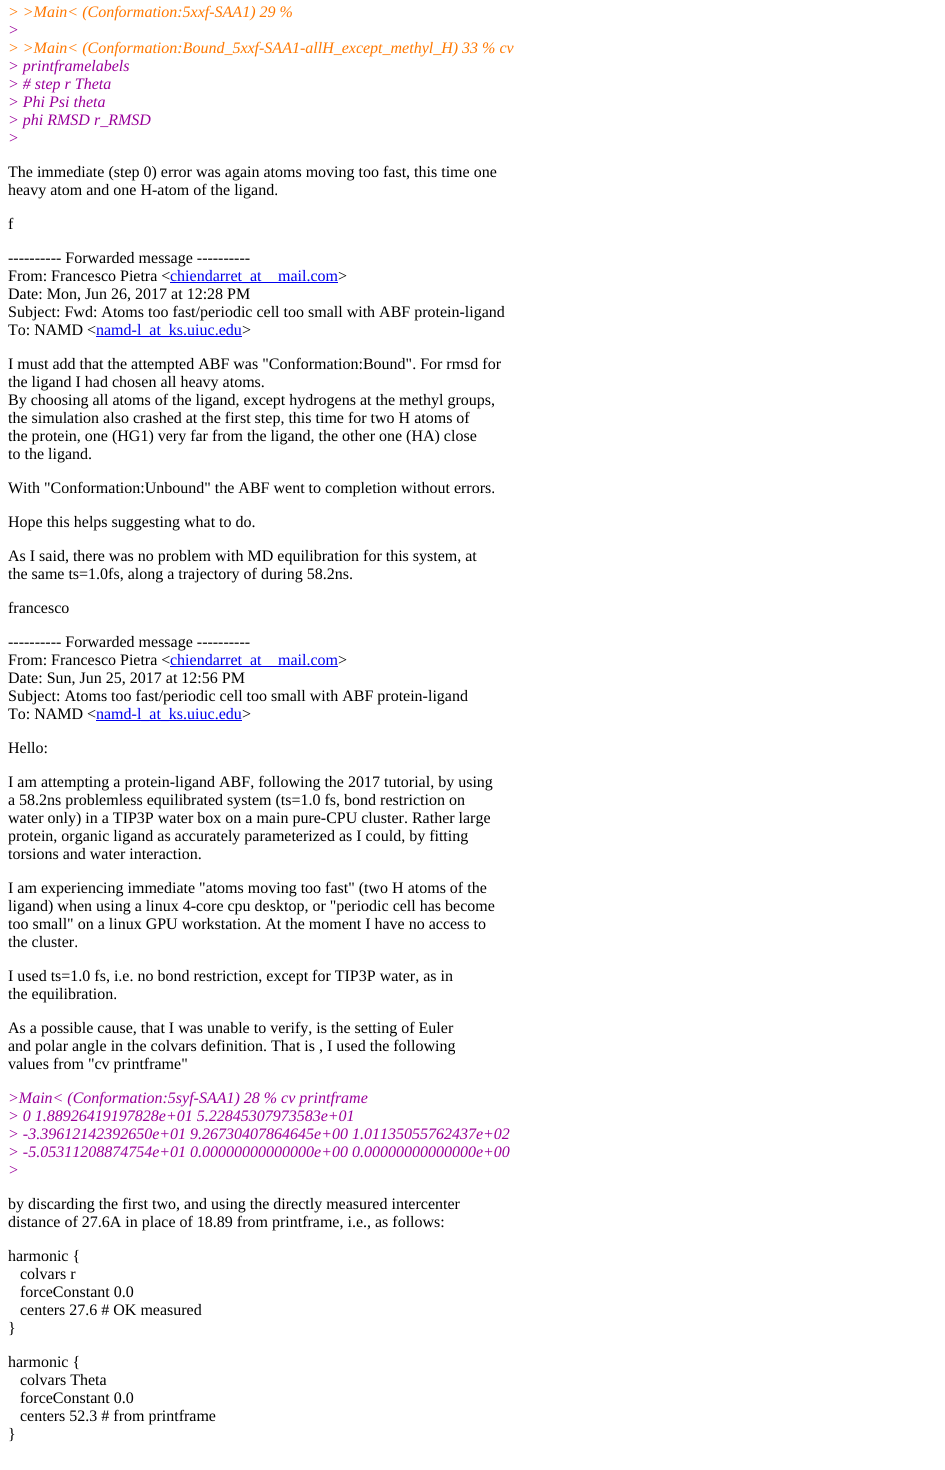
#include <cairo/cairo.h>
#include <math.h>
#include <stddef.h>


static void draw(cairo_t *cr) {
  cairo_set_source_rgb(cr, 1, 1, 1);
  cairo_paint(cr);
  cairo_set_source_rgb(cr, 0, 0, 238 / 255.0);
  cairo_rectangle(cr, 170, 282, 168, 1);
  cairo_fill(cr);
  cairo_rectangle(cr, 96, 336, 146, 1);
  cairo_fill(cr);
  cairo_rectangle(cr, 170, 666, 168, 1);
  cairo_fill(cr);
  cairo_rectangle(cr, 96, 720, 146, 1);
  cairo_fill(cr);
  cairo_select_font_face(cr, "Liberation Serif", CAIRO_FONT_SLANT_ITALIC, CAIRO_FONT_WEIGHT_NORMAL);
  cairo_set_font_size(cr, 16);
  cairo_set_source_rgb(cr, 1, 119 / 255.0, 0);
  cairo_move_to(cr, 8, 17);
  cairo_show_text(cr, "> >Main< (Conformation:5xxf-SAA1) 29 %");
  cairo_set_source_rgb(cr, 153 / 255.0, 0, 153 / 255.0);
  cairo_move_to(cr, 8, 35);
  cairo_show_text(cr, ">");
  cairo_set_source_rgb(cr, 1, 119 / 255.0, 0);
  cairo_move_to(cr, 8, 53);
  cairo_show_text(cr, "> >Main< (Conformation:Bound_5xxf-SAA1-allH_except_methyl_H) 33 % cv");
  cairo_set_source_rgb(cr, 153 / 255.0, 0, 153 / 255.0);
  cairo_move_to(cr, 8, 71);
  cairo_show_text(cr, "> printframelabels");
  cairo_move_to(cr, 8, 89);
  cairo_show_text(cr, "> # step r Theta");
  cairo_move_to(cr, 8, 107);
  cairo_show_text(cr, "> Phi Psi theta");
  cairo_move_to(cr, 8, 125);
  cairo_show_text(cr, "> phi RMSD r_RMSD");
  cairo_move_to(cr, 8, 143);
  cairo_show_text(cr, ">");
  cairo_select_font_face(cr, "Liberation Serif", CAIRO_FONT_SLANT_NORMAL, CAIRO_FONT_WEIGHT_NORMAL);
  cairo_set_source_rgb(cr, 0, 0, 0);
  cairo_move_to(cr, 8, 177);
  cairo_show_text(cr, "The immediate (step 0) error was again atoms moving too fast, this time one");
  cairo_move_to(cr, 8, 195);
  cairo_show_text(cr, "heavy atom and one H-atom of the ligand.");
  cairo_move_to(cr, 8, 229);
  cairo_show_text(cr, "f");
  cairo_move_to(cr, 8, 263);
  cairo_show_text(cr, "---------- Forwarded message ----------");
  cairo_move_to(cr, 8, 281);
  cairo_show_text(cr, "From: Francesco Pietra <");
  cairo_set_source_rgb(cr, 0, 0, 238 / 255.0);
  cairo_move_to(cr, 170, 281);
  cairo_show_text(cr, "chiendarret_at");
  cairo_move_to(cr, 278, 281);
  cairo_show_text(cr, "mail.com");
  cairo_set_source_rgb(cr, 0, 0, 0);
  cairo_move_to(cr, 338, 281);
  cairo_show_text(cr, ">");
  cairo_move_to(cr, 8, 299);
  cairo_show_text(cr, "Date: Mon, Jun 26, 2017 at 12:28 PM");
  cairo_move_to(cr, 8, 317);
  cairo_show_text(cr, "Subject: Fwd: Atoms too fast/periodic cell too small with ABF protein-ligand");
  cairo_move_to(cr, 8, 335);
  cairo_show_text(cr, "To: NAMD <");
  cairo_set_source_rgb(cr, 0, 0, 238 / 255.0);
  cairo_move_to(cr, 96, 335);
  cairo_show_text(cr, "namd-l_at_ks.uiuc.edu");
  cairo_set_source_rgb(cr, 0, 0, 0);
  cairo_move_to(cr, 242, 335);
  cairo_show_text(cr, ">");
  cairo_move_to(cr, 8, 369);
  cairo_show_text(cr, "I must add that the attempted ABF was \"Conformation:Bound\". For rmsd for");
  cairo_move_to(cr, 8, 387);
  cairo_show_text(cr, "the ligand I had chosen all heavy atoms.");
  cairo_move_to(cr, 8, 405);
  cairo_show_text(cr, "By choosing all atoms of the ligand, except hydrogens at the methyl groups,");
  cairo_move_to(cr, 8, 423);
  cairo_show_text(cr, "the simulation also crashed at the first step, this time for two H atoms of");
  cairo_move_to(cr, 8, 441);
  cairo_show_text(cr, "the protein, one (HG1) very far from the ligand, the other one (HA) close");
  cairo_move_to(cr, 8, 459);
  cairo_show_text(cr, "to the ligand.");
  cairo_move_to(cr, 8, 493);
  cairo_show_text(cr, "With \"Conformation:Unbound\" the ABF went to completion without errors.");
  cairo_move_to(cr, 8, 527);
  cairo_show_text(cr, "Hope this helps suggesting what to do.");
  cairo_move_to(cr, 8, 561);
  cairo_show_text(cr, "As I said, there was no problem with MD equilibration for this system, at");
  cairo_move_to(cr, 8, 579);
  cairo_show_text(cr, "the same ts=1.0fs, along a trajectory of during 58.2ns.");
  cairo_move_to(cr, 8, 613);
  cairo_show_text(cr, "francesco");
  cairo_move_to(cr, 8, 647);
  cairo_show_text(cr, "---------- Forwarded message ----------");
  cairo_move_to(cr, 8, 665);
  cairo_show_text(cr, "From: Francesco Pietra <");
  cairo_set_source_rgb(cr, 0, 0, 238 / 255.0);
  cairo_move_to(cr, 170, 665);
  cairo_show_text(cr, "chiendarret_at");
  cairo_move_to(cr, 278, 665);
  cairo_show_text(cr, "mail.com");
  cairo_set_source_rgb(cr, 0, 0, 0);
  cairo_move_to(cr, 338, 665);
  cairo_show_text(cr, ">");
  cairo_move_to(cr, 8, 683);
  cairo_show_text(cr, "Date: Sun, Jun 25, 2017 at 12:56 PM");
  cairo_move_to(cr, 8, 701);
  cairo_show_text(cr, "Subject: Atoms too fast/periodic cell too small with ABF protein-ligand");
  cairo_move_to(cr, 8, 719);
  cairo_show_text(cr, "To: NAMD <");
  cairo_set_source_rgb(cr, 0, 0, 238 / 255.0);
  cairo_move_to(cr, 96, 719);
  cairo_show_text(cr, "namd-l_at_ks.uiuc.edu");
  cairo_set_source_rgb(cr, 0, 0, 0);
  cairo_move_to(cr, 242, 719);
  cairo_show_text(cr, ">");
  cairo_move_to(cr, 8, 753);
  cairo_show_text(cr, "Hello:");
  cairo_move_to(cr, 8, 787);
  cairo_show_text(cr, "I am attempting a protein-ligand ABF, following the 2017 tutorial, by using");
  cairo_move_to(cr, 8, 805);
  cairo_show_text(cr, "a 58.2ns problemless equilibrated system (ts=1.0 fs, bond restriction on");
  cairo_move_to(cr, 8, 823);
  cairo_show_text(cr, "water only) in a TIP3P water box on a main pure-CPU cluster. Rather large");
  cairo_move_to(cr, 8, 841);
  cairo_show_text(cr, "protein, organic ligand as accurately parameterized as I could, by fitting");
  cairo_move_to(cr, 8, 859);
  cairo_show_text(cr, "torsions and water interaction.");
  cairo_move_to(cr, 8, 893);
  cairo_show_text(cr, "I am experiencing immediate \"atoms moving too fast\" (two H atoms of the");
  cairo_move_to(cr, 8, 911);
  cairo_show_text(cr, "ligand) when using a linux 4-core cpu desktop, or \"periodic cell has become");
  cairo_move_to(cr, 8, 929);
  cairo_show_text(cr, "too small\" on a linux GPU workstation. At the moment I have no access to");
  cairo_move_to(cr, 8, 947);
  cairo_show_text(cr, "the cluster.");
  cairo_move_to(cr, 8, 981);
  cairo_show_text(cr, "I used ts=1.0 fs, i.e. no bond restriction, except for TIP3P water, as in");
  cairo_move_to(cr, 8, 999);
  cairo_show_text(cr, "the equilibration.");
  cairo_move_to(cr, 8, 1033);
  cairo_show_text(cr, "As a possible cause, that I was unable to verify, is the setting of Euler");
  cairo_move_to(cr, 8, 1051);
  cairo_show_text(cr, "and polar angle in the colvars definition. That is , I used the following");
  cairo_move_to(cr, 8, 1069);
  cairo_show_text(cr, "values from \"cv printframe\"");
  cairo_select_font_face(cr, "Liberation Serif", CAIRO_FONT_SLANT_ITALIC, CAIRO_FONT_WEIGHT_NORMAL);
  cairo_set_source_rgb(cr, 153 / 255.0, 0, 153 / 255.0);
  cairo_move_to(cr, 8, 1103);
  cairo_show_text(cr, ">Main< (Conformation:5syf-SAA1) 28 % cv printframe");
  cairo_move_to(cr, 8, 1121);
  cairo_show_text(cr, "> 0 1.88926419197828e+01 5.22845307973583e+01");
  cairo_move_to(cr, 8, 1139);
  cairo_show_text(cr, "> -3.39612142392650e+01 9.26730407864645e+00 1.01135055762437e+02");
  cairo_move_to(cr, 8, 1157);
  cairo_show_text(cr, "> -5.05311208874754e+01 0.00000000000000e+00 0.00000000000000e+00");
  cairo_move_to(cr, 8, 1175);
  cairo_show_text(cr, ">");
  cairo_select_font_face(cr, "Liberation Serif", CAIRO_FONT_SLANT_NORMAL, CAIRO_FONT_WEIGHT_NORMAL);
  cairo_set_source_rgb(cr, 0, 0, 0);
  cairo_move_to(cr, 8, 1209);
  cairo_show_text(cr, "by discarding the first two, and using the directly measured intercenter");
  cairo_move_to(cr, 8, 1227);
  cairo_show_text(cr, "distance of 27.6A in place of 18.89 from printframe, i.e., as follows:");
  cairo_move_to(cr, 8, 1261);
  cairo_show_text(cr, "harmonic {");
  cairo_move_to(cr, 20, 1279);
  cairo_show_text(cr, "colvars r");
  cairo_move_to(cr, 20, 1297);
  cairo_show_text(cr, "forceConstant 0.0");
  cairo_move_to(cr, 20, 1315);
  cairo_show_text(cr, "centers 27.6 # OK measured");
  cairo_move_to(cr, 8, 1333);
  cairo_show_text(cr, "}");
  cairo_move_to(cr, 8, 1367);
  cairo_show_text(cr, "harmonic {");
  cairo_move_to(cr, 20, 1385);
  cairo_show_text(cr, "colvars Theta");
  cairo_move_to(cr, 20, 1403);
  cairo_show_text(cr, "forceConstant 0.0");
  cairo_move_to(cr, 20, 1421);
  cairo_show_text(cr, "centers 52.3 # from printframe");
  cairo_move_to(cr, 8, 1439);
  cairo_show_text(cr, "}");
}

int main(void) {
  cairo_surface_t *surface = cairo_image_surface_create(CAIRO_FORMAT_RGB24, 945, 1470);
  cairo_t *cr = cairo_create(surface);
  cairo_font_options_t *options = cairo_font_options_create();
  cairo_font_options_set_hint_metrics(options, CAIRO_HINT_METRICS_OFF);
  cairo_font_options_set_hint_style(options, CAIRO_HINT_STYLE_NONE);
  cairo_set_font_options(cr, options);
  cairo_set_miter_limit(cr, 4);
  draw(cr);
  cairo_surface_write_to_png(surface, "out.png");
  cairo_font_options_destroy(options);
  cairo_destroy(cr);
  cairo_surface_destroy(surface);
  return 0;
}
